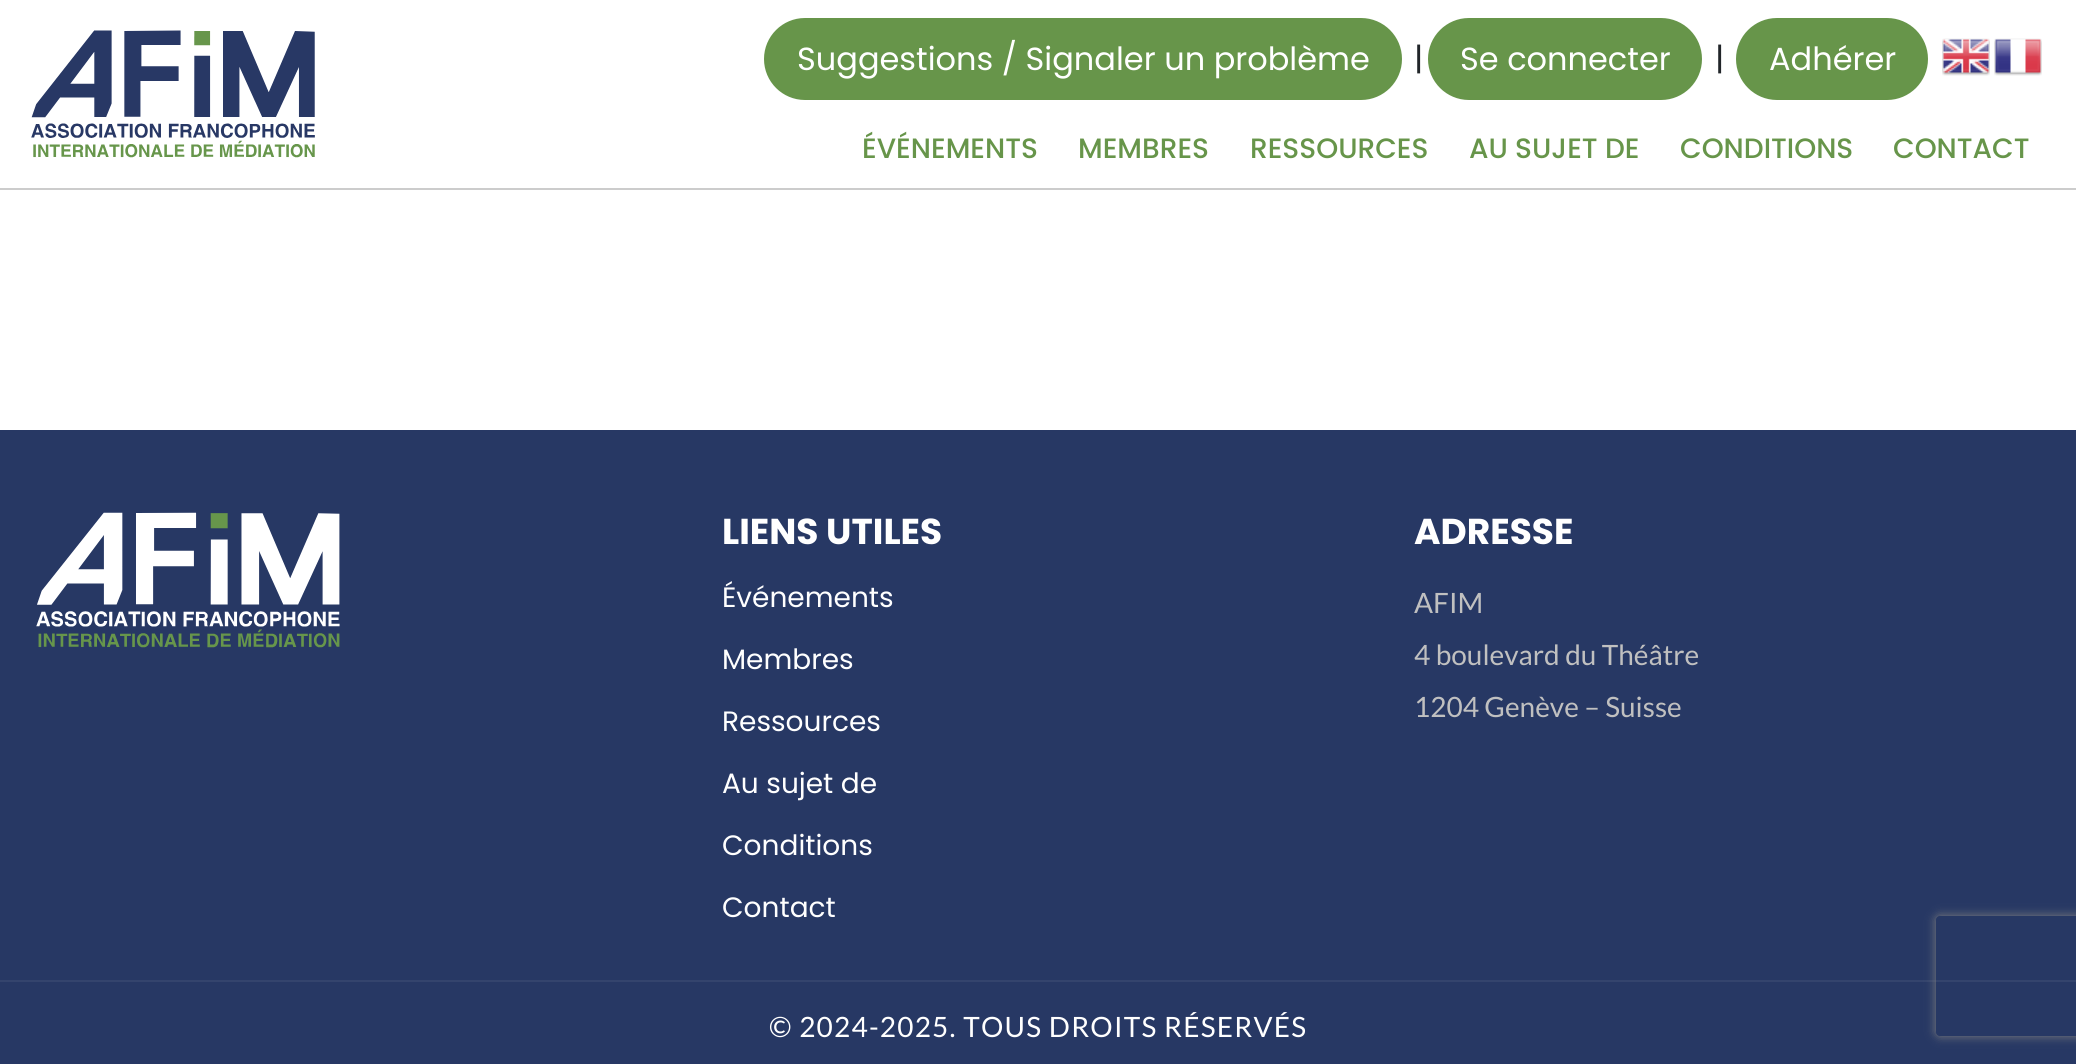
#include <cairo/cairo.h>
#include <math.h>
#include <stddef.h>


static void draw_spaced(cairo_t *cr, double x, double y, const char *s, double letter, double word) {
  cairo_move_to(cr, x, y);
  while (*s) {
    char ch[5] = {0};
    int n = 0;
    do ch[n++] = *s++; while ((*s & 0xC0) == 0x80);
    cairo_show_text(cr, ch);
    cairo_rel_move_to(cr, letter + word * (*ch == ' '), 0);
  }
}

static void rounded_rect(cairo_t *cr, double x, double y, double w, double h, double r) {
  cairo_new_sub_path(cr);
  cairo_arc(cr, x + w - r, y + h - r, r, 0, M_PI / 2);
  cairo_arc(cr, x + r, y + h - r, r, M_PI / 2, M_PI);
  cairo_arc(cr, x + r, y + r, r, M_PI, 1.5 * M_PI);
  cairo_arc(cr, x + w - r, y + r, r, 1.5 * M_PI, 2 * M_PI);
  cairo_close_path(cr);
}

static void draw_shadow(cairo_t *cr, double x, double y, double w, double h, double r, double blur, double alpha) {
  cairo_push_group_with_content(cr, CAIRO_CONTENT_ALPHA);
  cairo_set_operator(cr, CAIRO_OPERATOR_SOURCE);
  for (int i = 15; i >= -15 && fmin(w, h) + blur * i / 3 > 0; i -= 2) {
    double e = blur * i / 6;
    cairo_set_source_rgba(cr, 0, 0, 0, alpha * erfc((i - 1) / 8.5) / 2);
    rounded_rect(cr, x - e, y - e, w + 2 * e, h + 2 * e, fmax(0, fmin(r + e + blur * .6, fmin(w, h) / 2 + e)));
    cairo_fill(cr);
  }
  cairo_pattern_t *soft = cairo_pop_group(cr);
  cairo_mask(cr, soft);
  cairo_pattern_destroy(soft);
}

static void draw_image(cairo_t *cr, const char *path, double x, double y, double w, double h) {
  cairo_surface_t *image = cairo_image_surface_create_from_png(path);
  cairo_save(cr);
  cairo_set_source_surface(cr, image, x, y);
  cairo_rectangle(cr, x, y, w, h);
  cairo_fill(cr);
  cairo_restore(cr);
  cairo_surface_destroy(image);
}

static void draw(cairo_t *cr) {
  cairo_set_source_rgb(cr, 1, 1, 1);
  cairo_paint(cr);
  cairo_set_source_rgb(cr, 204 / 255.0, 204 / 255.0, 204 / 255.0);
  cairo_rectangle(cr, 0, 188, 2076, 2);
  cairo_fill(cr);
  draw_image(cr, "images/1.png", 31, 30, 284, 128);
  cairo_set_source_rgb(cr, 103 / 255.0, 149 / 255.0, 74 / 255.0);
  rounded_rect(cr, 765, 19, 636, 80, 40);
  cairo_fill_preserve(cr);
  cairo_stroke(cr);
  rounded_rect(cr, 1429, 19, 272, 80, 40);
  cairo_fill_preserve(cr);
  cairo_stroke(cr);
  rounded_rect(cr, 1737, 19, 190, 80, 40);
  cairo_fill_preserve(cr);
  cairo_stroke(cr);
  draw_image(cr, "images/2.png", 1942, 38, 48, 38);
  draw_image(cr, "images/3.png", 1994, 38, 48, 38);
  cairo_set_source_rgb(cr, 39 / 255.0, 56 / 255.0, 100 / 255.0);
  cairo_rectangle(cr, 0, 430, 2076, 634);
  cairo_fill(cr);
  draw_image(cr, "images/4.png", 36, 512, 304, 136);
  cairo_set_source_rgb(cr, 52 / 255.0, 68 / 255.0, 109 / 255.0);
  cairo_rectangle(cr, 0, 980, 2076, 2);
  cairo_fill(cr);
  cairo_save(cr);
  cairo_set_fill_rule(cr, CAIRO_FILL_RULE_EVEN_ODD);
  cairo_new_path(cr);
  cairo_move_to(cr, 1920, 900);
  cairo_line_to(cr, 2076, 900);
  cairo_line_to(cr, 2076, 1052);
  cairo_line_to(cr, 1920, 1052);
  cairo_close_path(cr);
  cairo_move_to(cr, 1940, 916);
  cairo_line_to(cr, 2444, 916);
  cairo_curve_to(cr, 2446, 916, 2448, 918, 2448, 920);
  cairo_line_to(cr, 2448, 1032);
  cairo_curve_to(cr, 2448, 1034, 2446, 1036, 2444, 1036);
  cairo_line_to(cr, 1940, 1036);
  cairo_curve_to(cr, 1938, 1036, 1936, 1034, 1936, 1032);
  cairo_line_to(cr, 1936, 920);
  cairo_curve_to(cr, 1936, 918, 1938, 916, 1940, 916);
  cairo_close_path(cr);
  cairo_clip(cr);
  cairo_set_source_rgb(cr, 128 / 255.0, 128 / 255.0, 128 / 255.0);
  draw_shadow(cr, 1936, 916, 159, 120, 4, 5, 1);
  cairo_restore(cr);
  cairo_select_font_face(cr, "Poppins", CAIRO_FONT_SLANT_NORMAL, CAIRO_FONT_WEIGHT_NORMAL);
  cairo_set_font_size(cr, 32);
  cairo_set_source_rgb(cr, 1, 1, 1);
  cairo_move_to(cr, 797, 70);
  cairo_show_text(cr, "Suggestions / Signaler un problème");
  cairo_set_source_rgb(cr, 33 / 255.0, 37 / 255.0, 41 / 255.0);
  cairo_move_to(cr, 1414, 70);
  cairo_show_text(cr, "|");
  cairo_set_source_rgb(cr, 1, 1, 1);
  cairo_move_to(cr, 1460, 70);
  cairo_show_text(cr, "Se connecter");
  cairo_set_source_rgb(cr, 33 / 255.0, 37 / 255.0, 41 / 255.0);
  cairo_move_to(cr, 1715, 70);
  cairo_show_text(cr, "|");
  cairo_set_source_rgb(cr, 1, 1, 1);
  cairo_move_to(cr, 1769, 70);
  cairo_show_text(cr, "Adhérer");
  cairo_select_font_face(cr, "Poppins Medium", CAIRO_FONT_SLANT_NORMAL, CAIRO_FONT_WEIGHT_NORMAL);
  cairo_set_font_size(cr, 28);
  cairo_set_source_rgb(cr, 103 / 255.0, 149 / 255.0, 74 / 255.0);
  cairo_move_to(cr, 862, 158);
  cairo_show_text(cr, "ÉVÉNEMENTS");
  cairo_move_to(cr, 1078, 158);
  cairo_show_text(cr, "MEMBRES");
  cairo_move_to(cr, 1250, 158);
  cairo_show_text(cr, "RESSOURCES");
  cairo_move_to(cr, 1469, 158);
  cairo_show_text(cr, "AU SUJET DE");
  cairo_move_to(cr, 1680, 158);
  cairo_show_text(cr, "CONDITIONS");
  cairo_move_to(cr, 1893, 158);
  cairo_show_text(cr, "CONTACT");
  cairo_select_font_face(cr, "Poppins", CAIRO_FONT_SLANT_NORMAL, CAIRO_FONT_WEIGHT_BOLD);
  cairo_set_font_size(cr, 36);
  cairo_set_source_rgb(cr, 1, 1, 1);
  cairo_move_to(cr, 722, 544);
  cairo_show_text(cr, "LIENS UTILES");
  cairo_select_font_face(cr, "Poppins", CAIRO_FONT_SLANT_NORMAL, CAIRO_FONT_WEIGHT_NORMAL);
  cairo_set_font_size(cr, 28);
  cairo_move_to(cr, 722, 607);
  cairo_show_text(cr, "Événements");
  cairo_move_to(cr, 722, 669);
  cairo_show_text(cr, "Membres");
  cairo_move_to(cr, 722, 731);
  cairo_show_text(cr, "Ressources");
  cairo_move_to(cr, 722, 793);
  cairo_show_text(cr, "Au sujet de");
  cairo_move_to(cr, 722, 855);
  cairo_show_text(cr, "Conditions");
  cairo_move_to(cr, 722, 917);
  cairo_show_text(cr, "Contact");
  cairo_select_font_face(cr, "Poppins", CAIRO_FONT_SLANT_NORMAL, CAIRO_FONT_WEIGHT_BOLD);
  cairo_set_font_size(cr, 36);
  cairo_move_to(cr, 1414, 544);
  cairo_show_text(cr, "ADRESSE");
  cairo_select_font_face(cr, "Lato", CAIRO_FONT_SLANT_NORMAL, CAIRO_FONT_WEIGHT_NORMAL);
  cairo_set_font_size(cr, 28);
  cairo_set_source_rgb(cr, 192 / 255.0, 192 / 255.0, 192 / 255.0);
  cairo_move_to(cr, 1414, 613);
  cairo_show_text(cr, "AFIM");
  cairo_move_to(cr, 1414, 665);
  cairo_show_text(cr, "4 boulevard du Théâtre");
  cairo_move_to(cr, 1414, 717);
  cairo_show_text(cr, "1204 Genève – Suisse");
  cairo_set_source_rgb(cr, 1, 1, 1);
  draw_spaced(cr, 769, 1037, "© 2024-2025. TOUS DROITS RÉSERVÉS", 1.2, 0);
}

int main(void) {
  cairo_surface_t *surface = cairo_image_surface_create(CAIRO_FORMAT_RGB24, 2076, 1064);
  cairo_t *cr = cairo_create(surface);
  cairo_font_options_t *options = cairo_font_options_create();
  cairo_font_options_set_hint_metrics(options, CAIRO_HINT_METRICS_OFF);
  cairo_font_options_set_hint_style(options, CAIRO_HINT_STYLE_NONE);
  cairo_set_font_options(cr, options);
  cairo_set_miter_limit(cr, 4);
  draw(cr);
  cairo_surface_write_to_png(surface, "out.png");
  cairo_font_options_destroy(options);
  cairo_destroy(cr);
  cairo_surface_destroy(surface);
  return 0;
}
